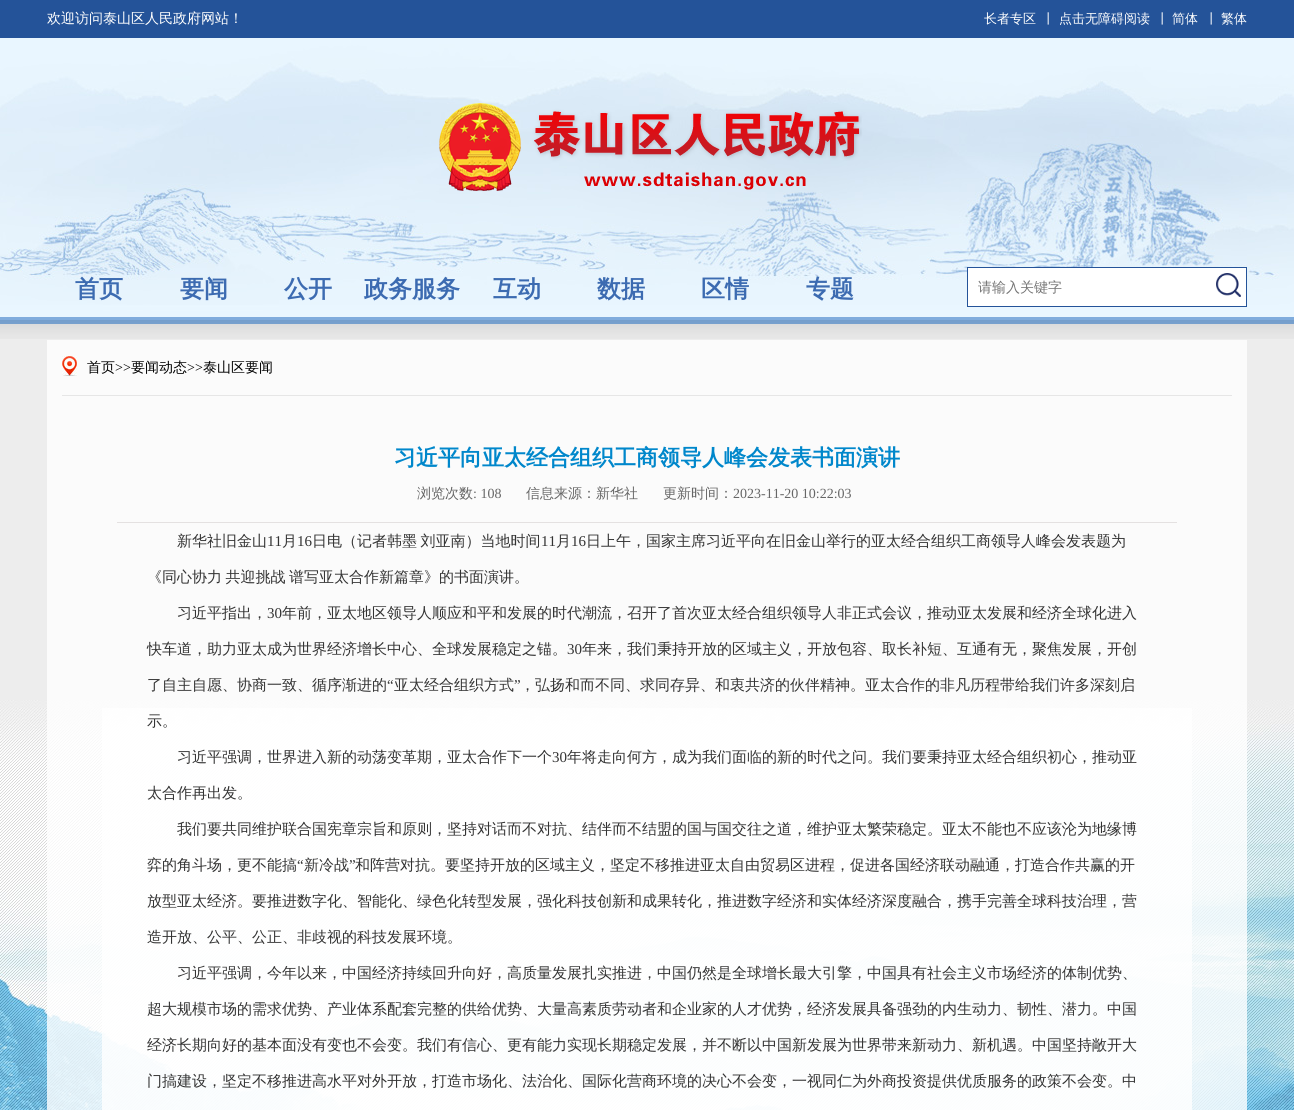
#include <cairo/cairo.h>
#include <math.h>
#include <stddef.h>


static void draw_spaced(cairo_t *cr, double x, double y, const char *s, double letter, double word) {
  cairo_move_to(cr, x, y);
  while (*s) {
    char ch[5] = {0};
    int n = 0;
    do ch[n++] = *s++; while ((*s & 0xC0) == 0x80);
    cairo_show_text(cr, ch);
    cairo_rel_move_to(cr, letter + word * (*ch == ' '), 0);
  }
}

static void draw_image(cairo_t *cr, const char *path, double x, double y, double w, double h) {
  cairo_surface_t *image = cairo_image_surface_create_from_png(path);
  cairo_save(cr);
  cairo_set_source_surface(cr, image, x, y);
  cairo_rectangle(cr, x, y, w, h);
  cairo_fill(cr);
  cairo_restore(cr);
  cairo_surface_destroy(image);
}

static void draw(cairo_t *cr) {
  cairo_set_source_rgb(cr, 237 / 255.0, 237 / 255.0, 237 / 255.0);
  cairo_paint(cr);
  cairo_set_source_rgb(cr, 251 / 255.0, 251 / 255.0, 251 / 255.0);
  cairo_rectangle(cr, 47, 340, 1200, 360);
  cairo_fill(cr);
  draw_image(cr, "images/1.png", 0, 700, 1294, 410);
  draw_image(cr, "images/2.png", 0, 38, 1294, 279);
  cairo_set_source_rgb(cr, 36 / 255.0, 83 / 255.0, 153 / 255.0);
  cairo_rectangle(cr, 0, 0, 1294, 38);
  cairo_fill(cr);
  draw_image(cr, "images/3.png", 439, 103, 423, 88);
  cairo_set_source_rgb(cr, 128 / 255.0, 172 / 255.0, 221 / 255.0);
  cairo_rectangle(cr, 0, 317, 1294, 7);
  cairo_fill(cr);
  cairo_set_source_rgb(cr, 1, 1, 1);
  cairo_rectangle(cr, 967.5, 267.5, 279, 39);
  cairo_fill_preserve(cr);
  cairo_set_source_rgb(cr, 36 / 255.0, 83 / 255.0, 153 / 255.0);
  cairo_set_line_width(cr, 1);
  cairo_stroke(cr);
  draw_image(cr, "images/4.png", 1216, 273, 25, 24);
  draw_image(cr, "images/5.png", 0, 320, 1294, 19);
  cairo_set_source_rgb(cr, 230 / 255.0, 230 / 255.0, 230 / 255.0);
  cairo_rectangle(cr, 62, 395, 1170, 1);
  cairo_fill(cr);
  draw_image(cr, "images/6.png", 62, 356, 15, 20);
  cairo_set_source_rgba(cr, 1, 1, 1, 0.8);
  cairo_rectangle(cr, 102, 708, 1090, 402);
  cairo_fill(cr);
  cairo_set_source_rgb(cr, 228 / 255.0, 225 / 255.0, 225 / 255.0);
  cairo_rectangle(cr, 117, 522, 1060, 1);
  cairo_fill(cr);
  cairo_select_font_face(cr, "WenQuanYi Zen Hei Medium", CAIRO_FONT_SLANT_NORMAL, CAIRO_FONT_WEIGHT_NORMAL);
  cairo_set_font_size(cr, 14);
  cairo_set_source_rgb(cr, 1, 1, 1);
  cairo_move_to(cr, 47, 23);
  cairo_show_text(cr, "欢迎访问泰山区人民政府网站！");
  cairo_set_font_size(cr, 13);
  cairo_move_to(cr, 984, 23);
  cairo_show_text(cr, "长者专区");
  cairo_move_to(cr, 1042, 23);
  cairo_show_text(cr, "丨");
  cairo_move_to(cr, 1059, 23);
  cairo_show_text(cr, "点击无障碍阅读");
  cairo_move_to(cr, 1156, 23);
  cairo_show_text(cr, "丨");
  cairo_move_to(cr, 1172, 23);
  cairo_show_text(cr, "简体");
  cairo_move_to(cr, 1205, 23);
  cairo_show_text(cr, "丨");
  cairo_move_to(cr, 1221, 23);
  cairo_show_text(cr, "繁体");
  cairo_select_font_face(cr, "WenQuanYi Zen Hei", CAIRO_FONT_SLANT_NORMAL, CAIRO_FONT_WEIGHT_BOLD);
  cairo_set_font_size(cr, 24);
  cairo_set_source_rgb(cr, 60 / 255.0, 107 / 255.0, 177 / 255.0);
  cairo_move_to(cr, 75, 297);
  cairo_show_text(cr, "首页");
  cairo_move_to(cr, 180, 297);
  cairo_show_text(cr, "要闻");
  cairo_move_to(cr, 284, 297);
  cairo_show_text(cr, "公开");
  cairo_move_to(cr, 364, 297);
  cairo_show_text(cr, "政务服务");
  cairo_move_to(cr, 493, 297);
  cairo_show_text(cr, "互动");
  cairo_move_to(cr, 597, 297);
  cairo_show_text(cr, "数据");
  cairo_move_to(cr, 701, 297);
  cairo_show_text(cr, "区情");
  cairo_move_to(cr, 806, 297);
  cairo_show_text(cr, "专题");
  cairo_select_font_face(cr, "WenQuanYi Zen Hei Medium", CAIRO_FONT_SLANT_NORMAL, CAIRO_FONT_WEIGHT_NORMAL);
  cairo_set_font_size(cr, 14);
  cairo_set_source_rgb(cr, 117 / 255.0, 117 / 255.0, 117 / 255.0);
  cairo_move_to(cr, 978, 292);
  cairo_show_text(cr, "请输入关键字");
  cairo_set_source_rgb(cr, 0, 0, 0);
  cairo_move_to(cr, 87, 372);
  cairo_show_text(cr, "首页");
  cairo_select_font_face(cr, "Liberation Serif", CAIRO_FONT_SLANT_NORMAL, CAIRO_FONT_WEIGHT_NORMAL);
  cairo_move_to(cr, 115, 372);
  cairo_show_text(cr, ">>");
  cairo_select_font_face(cr, "WenQuanYi Zen Hei Medium", CAIRO_FONT_SLANT_NORMAL, CAIRO_FONT_WEIGHT_NORMAL);
  cairo_move_to(cr, 131, 372);
  cairo_show_text(cr, "要闻动态");
  cairo_select_font_face(cr, "Liberation Serif", CAIRO_FONT_SLANT_NORMAL, CAIRO_FONT_WEIGHT_NORMAL);
  cairo_move_to(cr, 187, 372);
  cairo_show_text(cr, ">>");
  cairo_select_font_face(cr, "WenQuanYi Zen Hei Medium", CAIRO_FONT_SLANT_NORMAL, CAIRO_FONT_WEIGHT_NORMAL);
  cairo_move_to(cr, 203, 372);
  cairo_show_text(cr, "泰山区要闻");
  cairo_select_font_face(cr, "WenQuanYi Zen Hei", CAIRO_FONT_SLANT_NORMAL, CAIRO_FONT_WEIGHT_BOLD);
  cairo_set_font_size(cr, 22);
  cairo_set_source_rgb(cr, 0, 135 / 255.0, 203 / 255.0);
  cairo_move_to(cr, 394, 465);
  cairo_show_text(cr, "习近平向亚太经合组织工商领导人峰会发表书面演讲");
  cairo_select_font_face(cr, "WenQuanYi Zen Hei Medium", CAIRO_FONT_SLANT_NORMAL, CAIRO_FONT_WEIGHT_NORMAL);
  cairo_set_font_size(cr, 14);
  cairo_set_source_rgb(cr, 102 / 255.0, 102 / 255.0, 102 / 255.0);
  cairo_move_to(cr, 417, 498);
  cairo_show_text(cr, "浏览次数");
  cairo_select_font_face(cr, "Liberation Serif", CAIRO_FONT_SLANT_NORMAL, CAIRO_FONT_WEIGHT_NORMAL);
  cairo_move_to(cr, 473, 498);
  cairo_show_text(cr, ": 108");
  cairo_select_font_face(cr, "WenQuanYi Zen Hei Medium", CAIRO_FONT_SLANT_NORMAL, CAIRO_FONT_WEIGHT_NORMAL);
  cairo_move_to(cr, 526, 498);
  cairo_show_text(cr, "信息来源：新华社");
  cairo_move_to(cr, 663, 498);
  cairo_show_text(cr, "更新时间：");
  cairo_select_font_face(cr, "Liberation Serif", CAIRO_FONT_SLANT_NORMAL, CAIRO_FONT_WEIGHT_NORMAL);
  cairo_move_to(cr, 733, 498);
  cairo_show_text(cr, "2023-11-20 10:22:03");
  cairo_select_font_face(cr, "WenQuanYi Zen Hei Medium", CAIRO_FONT_SLANT_NORMAL, CAIRO_FONT_WEIGHT_NORMAL);
  cairo_set_font_size(cr, 15);
  cairo_set_source_rgb(cr, 51 / 255.0, 51 / 255.0, 51 / 255.0);
  cairo_move_to(cr, 177, 546);
  cairo_show_text(cr, "新华社旧金山");
  cairo_select_font_face(cr, "Liberation Serif", CAIRO_FONT_SLANT_NORMAL, CAIRO_FONT_WEIGHT_NORMAL);
  cairo_move_to(cr, 267, 546);
  cairo_show_text(cr, "11");
  cairo_select_font_face(cr, "WenQuanYi Zen Hei Medium", CAIRO_FONT_SLANT_NORMAL, CAIRO_FONT_WEIGHT_NORMAL);
  cairo_move_to(cr, 282, 546);
  cairo_show_text(cr, "月");
  cairo_select_font_face(cr, "Liberation Serif", CAIRO_FONT_SLANT_NORMAL, CAIRO_FONT_WEIGHT_NORMAL);
  cairo_move_to(cr, 297, 546);
  cairo_show_text(cr, "16");
  cairo_select_font_face(cr, "WenQuanYi Zen Hei Medium", CAIRO_FONT_SLANT_NORMAL, CAIRO_FONT_WEIGHT_NORMAL);
  draw_spaced(cr, 312, 546, "日电（记者韩墨 刘亚南）当地时间", 0, -1);
  cairo_select_font_face(cr, "Liberation Serif", CAIRO_FONT_SLANT_NORMAL, CAIRO_FONT_WEIGHT_NORMAL);
  cairo_move_to(cr, 541, 546);
  cairo_show_text(cr, "11");
  cairo_select_font_face(cr, "WenQuanYi Zen Hei Medium", CAIRO_FONT_SLANT_NORMAL, CAIRO_FONT_WEIGHT_NORMAL);
  cairo_move_to(cr, 556, 546);
  cairo_show_text(cr, "月");
  cairo_select_font_face(cr, "Liberation Serif", CAIRO_FONT_SLANT_NORMAL, CAIRO_FONT_WEIGHT_NORMAL);
  cairo_move_to(cr, 571, 546);
  cairo_show_text(cr, "16");
  cairo_select_font_face(cr, "WenQuanYi Zen Hei Medium", CAIRO_FONT_SLANT_NORMAL, CAIRO_FONT_WEIGHT_NORMAL);
  cairo_move_to(cr, 586, 546);
  cairo_show_text(cr, "日上午，国家主席习近平向在旧金山举行的亚太经合组织工商领导人峰会发表题为");
  draw_spaced(cr, 147, 582, "《同心协力 共迎挑战 谱写亚太合作新篇章》的书面演讲。", 0, -1);
  cairo_move_to(cr, 177, 618);
  cairo_show_text(cr, "习近平指出，");
  cairo_select_font_face(cr, "Liberation Serif", CAIRO_FONT_SLANT_NORMAL, CAIRO_FONT_WEIGHT_NORMAL);
  cairo_move_to(cr, 267, 618);
  cairo_show_text(cr, "30");
  cairo_select_font_face(cr, "WenQuanYi Zen Hei Medium", CAIRO_FONT_SLANT_NORMAL, CAIRO_FONT_WEIGHT_NORMAL);
  cairo_move_to(cr, 282, 618);
  cairo_show_text(cr, "年前，亚太地区领导人顺应和平和发展的时代潮流，召开了首次亚太经合组织领导人非正式会议，推动亚太发展和经济全球化进入");
  cairo_move_to(cr, 147, 654);
  cairo_show_text(cr, "快车道，助力亚太成为世界经济增长中心、全球发展稳定之锚。");
  cairo_select_font_face(cr, "Liberation Serif", CAIRO_FONT_SLANT_NORMAL, CAIRO_FONT_WEIGHT_NORMAL);
  cairo_move_to(cr, 567, 654);
  cairo_show_text(cr, "30");
  cairo_select_font_face(cr, "WenQuanYi Zen Hei Medium", CAIRO_FONT_SLANT_NORMAL, CAIRO_FONT_WEIGHT_NORMAL);
  cairo_move_to(cr, 582, 654);
  cairo_show_text(cr, "年来，我们秉持开放的区域主义，开放包容、取长补短、互通有无，聚焦发展，开创");
  cairo_move_to(cr, 147, 690);
  cairo_show_text(cr, "了自主自愿、协商一致、循序渐进的");
  cairo_select_font_face(cr, "Liberation Serif", CAIRO_FONT_SLANT_NORMAL, CAIRO_FONT_WEIGHT_NORMAL);
  cairo_move_to(cr, 387, 690);
  cairo_show_text(cr, "“");
  cairo_select_font_face(cr, "WenQuanYi Zen Hei Medium", CAIRO_FONT_SLANT_NORMAL, CAIRO_FONT_WEIGHT_NORMAL);
  cairo_move_to(cr, 394, 690);
  cairo_show_text(cr, "亚太经合组织方式");
  cairo_select_font_face(cr, "Liberation Serif", CAIRO_FONT_SLANT_NORMAL, CAIRO_FONT_WEIGHT_NORMAL);
  cairo_move_to(cr, 514, 690);
  cairo_show_text(cr, "”");
  cairo_select_font_face(cr, "WenQuanYi Zen Hei Medium", CAIRO_FONT_SLANT_NORMAL, CAIRO_FONT_WEIGHT_NORMAL);
  cairo_move_to(cr, 520, 690);
  cairo_show_text(cr, "，弘扬和而不同、求同存异、和衷共济的伙伴精神。亚太合作的非凡历程带给我们许多深刻启");
  cairo_move_to(cr, 147, 726);
  cairo_show_text(cr, "示。");
  cairo_move_to(cr, 177, 762);
  cairo_show_text(cr, "习近平强调，世界进入新的动荡变革期，亚太合作下一个");
  cairo_select_font_face(cr, "Liberation Serif", CAIRO_FONT_SLANT_NORMAL, CAIRO_FONT_WEIGHT_NORMAL);
  cairo_move_to(cr, 552, 762);
  cairo_show_text(cr, "30");
  cairo_select_font_face(cr, "WenQuanYi Zen Hei Medium", CAIRO_FONT_SLANT_NORMAL, CAIRO_FONT_WEIGHT_NORMAL);
  cairo_move_to(cr, 567, 762);
  cairo_show_text(cr, "年将走向何方，成为我们面临的新的时代之问。我们要秉持亚太经合组织初心，推动亚");
  cairo_move_to(cr, 147, 798);
  cairo_show_text(cr, "太合作再出发。");
  cairo_move_to(cr, 177, 834);
  cairo_show_text(cr, "我们要共同维护联合国宪章宗旨和原则，坚持对话而不对抗、结伴而不结盟的国与国交往之道，维护亚太繁荣稳定。亚太不能也不应该沦为地缘博");
  cairo_move_to(cr, 147, 870);
  cairo_show_text(cr, "弈的角斗场，更不能搞");
  cairo_select_font_face(cr, "Liberation Serif", CAIRO_FONT_SLANT_NORMAL, CAIRO_FONT_WEIGHT_NORMAL);
  cairo_move_to(cr, 297, 870);
  cairo_show_text(cr, "“");
  cairo_select_font_face(cr, "WenQuanYi Zen Hei Medium", CAIRO_FONT_SLANT_NORMAL, CAIRO_FONT_WEIGHT_NORMAL);
  cairo_move_to(cr, 304, 870);
  cairo_show_text(cr, "新冷战");
  cairo_select_font_face(cr, "Liberation Serif", CAIRO_FONT_SLANT_NORMAL, CAIRO_FONT_WEIGHT_NORMAL);
  cairo_move_to(cr, 349, 870);
  cairo_show_text(cr, "”");
  cairo_select_font_face(cr, "WenQuanYi Zen Hei Medium", CAIRO_FONT_SLANT_NORMAL, CAIRO_FONT_WEIGHT_NORMAL);
  cairo_move_to(cr, 355, 870);
  cairo_show_text(cr, "和阵营对抗。要坚持开放的区域主义，坚定不移推进亚太自由贸易区进程，促进各国经济联动融通，打造合作共赢的开");
  cairo_move_to(cr, 147, 906);
  cairo_show_text(cr, "放型亚太经济。要推进数字化、智能化、绿色化转型发展，强化科技创新和成果转化，推进数字经济和实体经济深度融合，携手完善全球科技治理，营");
  cairo_move_to(cr, 147, 942);
  cairo_show_text(cr, "造开放、公平、公正、非歧视的科技发展环境。");
  cairo_move_to(cr, 177, 978);
  cairo_show_text(cr, "习近平强调，今年以来，中国经济持续回升向好，高质量发展扎实推进，中国仍然是全球增长最大引擎，中国具有社会主义市场经济的体制优势、");
  cairo_move_to(cr, 147, 1014);
  cairo_show_text(cr, "超大规模市场的需求优势、产业体系配套完整的供给优势、大量高素质劳动者和企业家的人才优势，经济发展具备强劲的内生动力、韧性、潜力。中国");
  cairo_move_to(cr, 147, 1050);
  cairo_show_text(cr, "经济长期向好的基本面没有变也不会变。我们有信心、更有能力实现长期稳定发展，并不断以中国新发展为世界带来新动力、新机遇。中国坚持敞开大");
  cairo_move_to(cr, 147, 1086);
  cairo_show_text(cr, "门搞建设，坚定不移推进高水平对外开放，打造市场化、法治化、国际化营商环境的决心不会变，一视同仁为外商投资提供优质服务的政策不会变。中");
}

int main(void) {
  cairo_surface_t *surface = cairo_image_surface_create(CAIRO_FORMAT_RGB24, 1294, 1110);
  cairo_t *cr = cairo_create(surface);
  cairo_font_options_t *options = cairo_font_options_create();
  cairo_font_options_set_hint_metrics(options, CAIRO_HINT_METRICS_OFF);
  cairo_font_options_set_hint_style(options, CAIRO_HINT_STYLE_NONE);
  cairo_set_font_options(cr, options);
  cairo_set_miter_limit(cr, 4);
  draw(cr);
  cairo_surface_write_to_png(surface, "out.png");
  cairo_font_options_destroy(options);
  cairo_destroy(cr);
  cairo_surface_destroy(surface);
  return 0;
}
